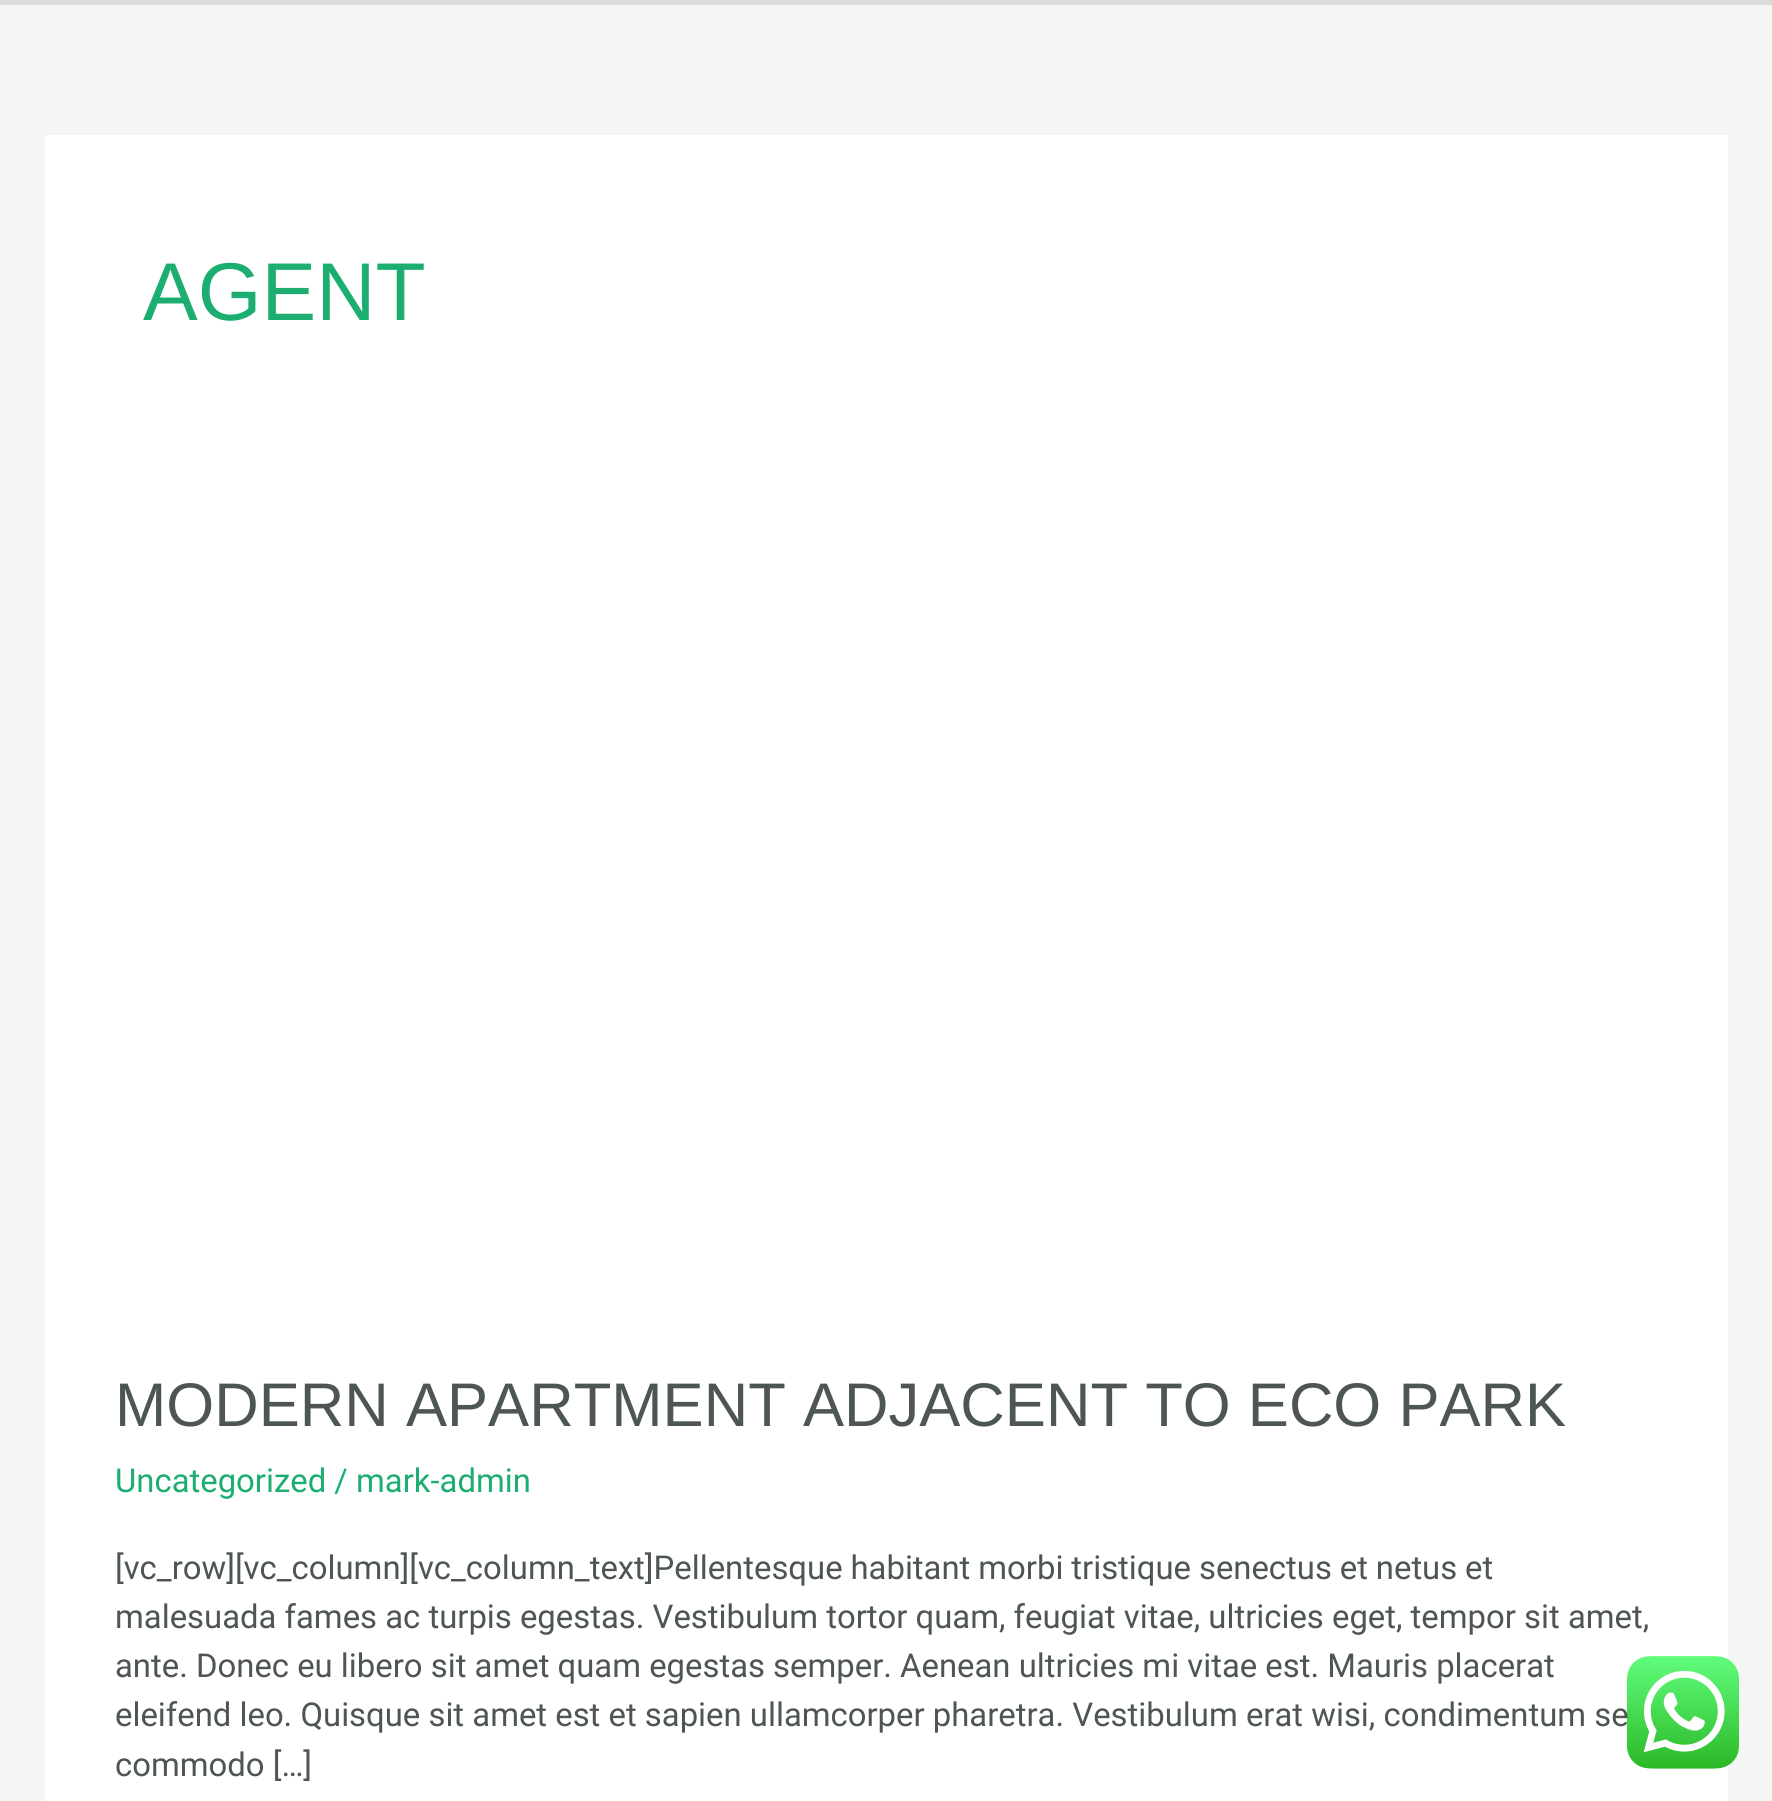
#include <cairo/cairo.h>
#include <math.h>
#include <stddef.h>


static void draw_spaced(cairo_t *cr, double x, double y, const char *s, double letter, double word) {
  cairo_move_to(cr, x, y);
  while (*s) {
    char ch[5] = {0};
    int n = 0;
    do ch[n++] = *s++; while ((*s & 0xC0) == 0x80);
    cairo_show_text(cr, ch);
    cairo_rel_move_to(cr, letter + word * (*ch == ' '), 0);
  }
}

static void draw_image(cairo_t *cr, const char *path, double x, double y, double w, double h) {
  cairo_surface_t *image = cairo_image_surface_create_from_png(path);
  cairo_save(cr);
  cairo_set_source_surface(cr, image, x, y);
  cairo_rectangle(cr, x, y, w, h);
  cairo_fill(cr);
  cairo_restore(cr);
  cairo_surface_destroy(image);
}

static void draw(cairo_t *cr) {
  cairo_set_source_rgb(cr, 244 / 255.0, 246 / 255.0, 244 / 255.0);
  cairo_paint(cr);
  cairo_set_source_rgb(cr, 221 / 255.0, 221 / 255.0, 221 / 255.0);
  cairo_rectangle(cr, 0, 0, 1772, 5);
  cairo_fill(cr);
  cairo_set_source_rgb(cr, 1, 1, 1);
  cairo_rectangle(cr, 45, 135, 1683, 1666);
  cairo_fill(cr);
  draw_image(cr, "images/1.png", 1627, 1656, 112, 113);
  cairo_select_font_face(cr, "Liberation Sans", CAIRO_FONT_SLANT_NORMAL, CAIRO_FONT_WEIGHT_NORMAL);
  cairo_set_font_size(cr, 82);
  cairo_set_source_rgb(cr, 27 / 255.0, 174 / 255.0, 112 / 255.0);
  cairo_move_to(cr, 143, 320);
  cairo_show_text(cr, "AGENT");
  cairo_set_font_size(cr, 61.6);
  cairo_set_source_rgb(cr, 78 / 255.0, 86 / 255.0, 82 / 255.0);
  cairo_move_to(cr, 115, 1426);
  cairo_show_text(cr, "MODERN APARTMENT ADJACENT TO ECO PARK");
  cairo_select_font_face(cr, "Roboto", CAIRO_FONT_SLANT_NORMAL, CAIRO_FONT_WEIGHT_NORMAL);
  cairo_set_font_size(cr, 32.85);
  cairo_set_source_rgb(cr, 27 / 255.0, 174 / 255.0, 112 / 255.0);
  cairo_move_to(cr, 115, 1492);
  cairo_show_text(cr, "Uncategorized / mark-admin");
  cairo_set_source_rgb(cr, 78 / 255.0, 86 / 255.0, 82 / 255.0);
  draw_spaced(cr, 115, 1579, "[vc_row][vc_column][vc_column_text]Pellentesque habitant morbi tristique senectus et netus et", 0, -0.25);
  cairo_move_to(cr, 115, 1628);
  cairo_show_text(cr, "malesuada fames ac turpis egestas. Vestibulum tortor quam, feugiat vitae, ultricies eget, tempor sit amet,");
  cairo_move_to(cr, 115, 1677);
  cairo_show_text(cr, "ante. Donec eu libero sit amet quam egestas semper. Aenean ultricies mi vitae est. Mauris placerat");
  cairo_move_to(cr, 115, 1726);
  cairo_show_text(cr, "eleifend leo. Quisque sit amet est et sapien ullamcorper pharetra. Vestibulum erat wisi, condimentum se");
  cairo_move_to(cr, 115, 1776);
  cairo_show_text(cr, "commodo […]");
}

int main(void) {
  cairo_surface_t *surface = cairo_image_surface_create(CAIRO_FORMAT_RGB24, 1772, 1801);
  cairo_t *cr = cairo_create(surface);
  cairo_font_options_t *options = cairo_font_options_create();
  cairo_font_options_set_hint_metrics(options, CAIRO_HINT_METRICS_OFF);
  cairo_font_options_set_hint_style(options, CAIRO_HINT_STYLE_NONE);
  cairo_set_font_options(cr, options);
  cairo_set_miter_limit(cr, 4);
  draw(cr);
  cairo_surface_write_to_png(surface, "out.png");
  cairo_font_options_destroy(options);
  cairo_destroy(cr);
  cairo_surface_destroy(surface);
  return 0;
}
